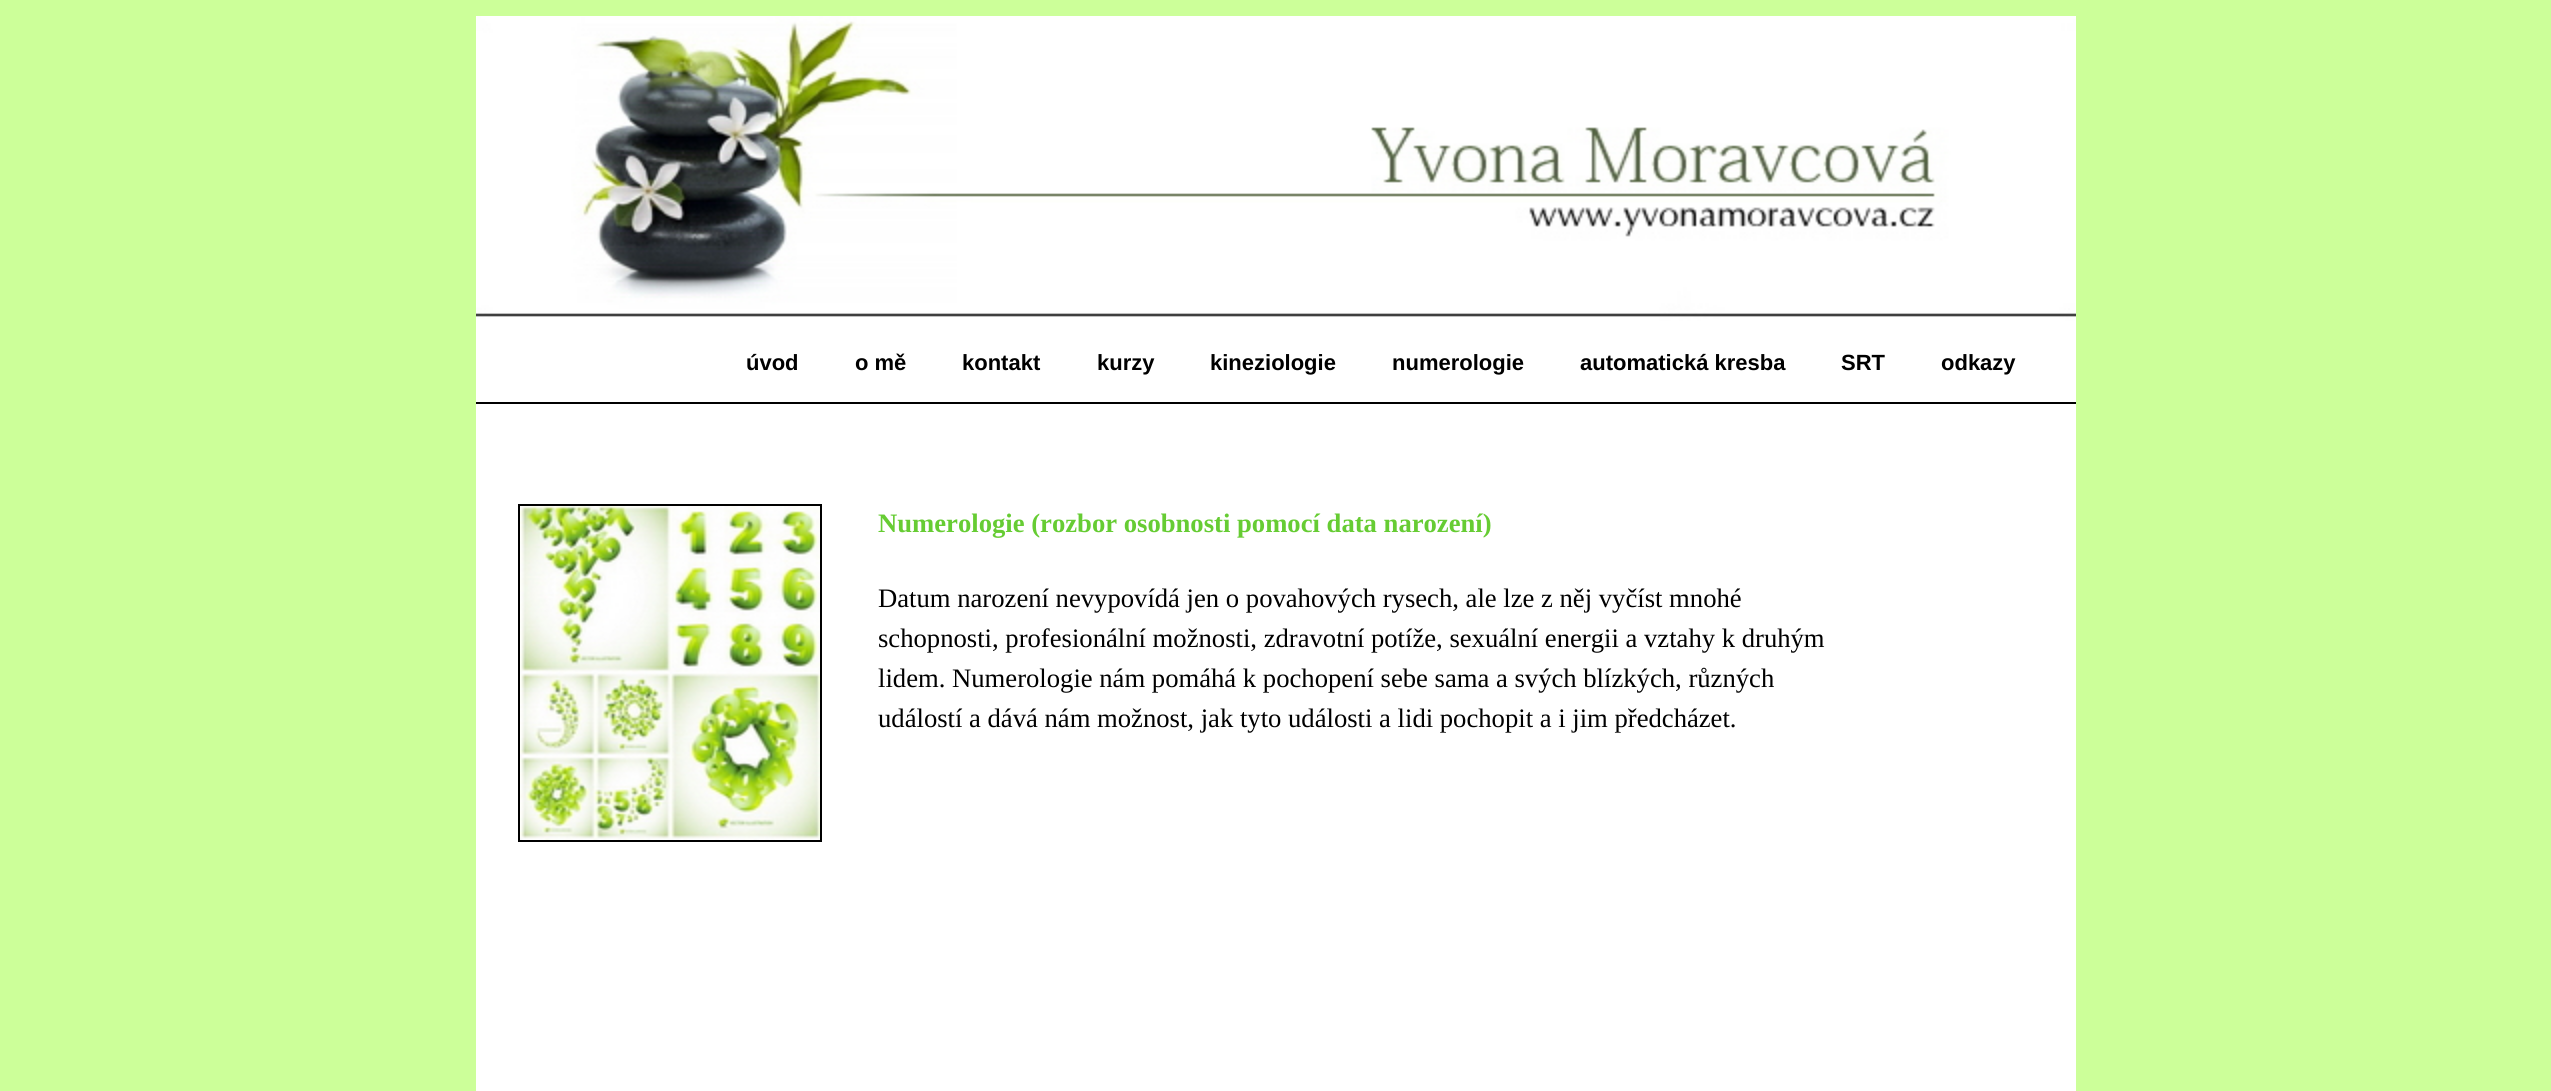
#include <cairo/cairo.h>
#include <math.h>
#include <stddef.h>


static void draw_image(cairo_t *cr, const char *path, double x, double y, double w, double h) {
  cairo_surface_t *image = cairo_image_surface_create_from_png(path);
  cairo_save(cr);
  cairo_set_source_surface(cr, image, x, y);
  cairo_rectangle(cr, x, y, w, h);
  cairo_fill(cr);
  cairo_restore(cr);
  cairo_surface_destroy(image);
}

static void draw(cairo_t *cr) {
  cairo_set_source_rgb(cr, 204 / 255.0, 1, 153 / 255.0);
  cairo_paint(cr);
  draw_image(cr, "images/1.png", 476, 16, 1600, 306);
  cairo_set_source_rgb(cr, 1, 1, 1);
  cairo_rectangle(cr, 476, 322, 1600, 80);
  cairo_fill(cr);
  cairo_rectangle(cr, 476, 404, 1600, 687);
  cairo_fill(cr);
  cairo_set_source_rgb(cr, 0, 0, 0);
  cairo_rectangle(cr, 476, 402, 1600, 2);
  cairo_fill(cr);
  cairo_rectangle(cr, 519, 505, 302, 336);
  cairo_stroke(cr);
  draw_image(cr, "images/2.png", 520, 506, 300, 334);
  cairo_select_font_face(cr, "Liberation Sans", CAIRO_FONT_SLANT_NORMAL, CAIRO_FONT_WEIGHT_BOLD);
  cairo_set_font_size(cr, 22);
  cairo_move_to(cr, 746, 370);
  cairo_show_text(cr, "úvod");
  cairo_move_to(cr, 855, 370);
  cairo_show_text(cr, "o mě");
  cairo_move_to(cr, 962, 370);
  cairo_show_text(cr, "kontakt");
  cairo_move_to(cr, 1097, 370);
  cairo_show_text(cr, "kurzy");
  cairo_move_to(cr, 1210, 370);
  cairo_show_text(cr, "kineziologie");
  cairo_move_to(cr, 1392, 370);
  cairo_show_text(cr, "numerologie");
  cairo_move_to(cr, 1580, 370);
  cairo_show_text(cr, "automatická kresba");
  cairo_move_to(cr, 1841, 370);
  cairo_show_text(cr, "SRT");
  cairo_move_to(cr, 1941, 370);
  cairo_show_text(cr, "odkazy");
  cairo_select_font_face(cr, "Liberation Serif", CAIRO_FONT_SLANT_NORMAL, CAIRO_FONT_WEIGHT_BOLD);
  cairo_set_font_size(cr, 26.65);
  cairo_set_source_rgb(cr, 102 / 255.0, 204 / 255.0, 51 / 255.0);
  cairo_move_to(cr, 878, 532);
  cairo_show_text(cr, "Numerologie (rozbor osobnosti pomocí data narození)");
  cairo_select_font_face(cr, "Liberation Serif", CAIRO_FONT_SLANT_NORMAL, CAIRO_FONT_WEIGHT_NORMAL);
  cairo_set_source_rgb(cr, 0, 0, 0);
  cairo_move_to(cr, 878, 607);
  cairo_show_text(cr, "Datum narození nevypovídá jen o povahových rysech, ale lze z něj vyčíst mnohé");
  cairo_move_to(cr, 878, 647);
  cairo_show_text(cr, "schopnosti, profesionální možnosti, zdravotní potíže, sexuální energii a vztahy k druhým");
  cairo_move_to(cr, 878, 687);
  cairo_show_text(cr, "lidem. Numerologie nám pomáhá k pochopení sebe sama a svých blízkých, různých");
  cairo_move_to(cr, 878, 727);
  cairo_show_text(cr, "událostí a dává nám možnost, jak tyto události a lidi pochopit a i jim předcházet.");
}

int main(void) {
  cairo_surface_t *surface = cairo_image_surface_create(CAIRO_FORMAT_RGB24, 2551, 1091);
  cairo_t *cr = cairo_create(surface);
  cairo_font_options_t *options = cairo_font_options_create();
  cairo_font_options_set_hint_metrics(options, CAIRO_HINT_METRICS_OFF);
  cairo_font_options_set_hint_style(options, CAIRO_HINT_STYLE_NONE);
  cairo_set_font_options(cr, options);
  cairo_set_miter_limit(cr, 4);
  draw(cr);
  cairo_surface_write_to_png(surface, "out.png");
  cairo_font_options_destroy(options);
  cairo_destroy(cr);
  cairo_surface_destroy(surface);
  return 0;
}
